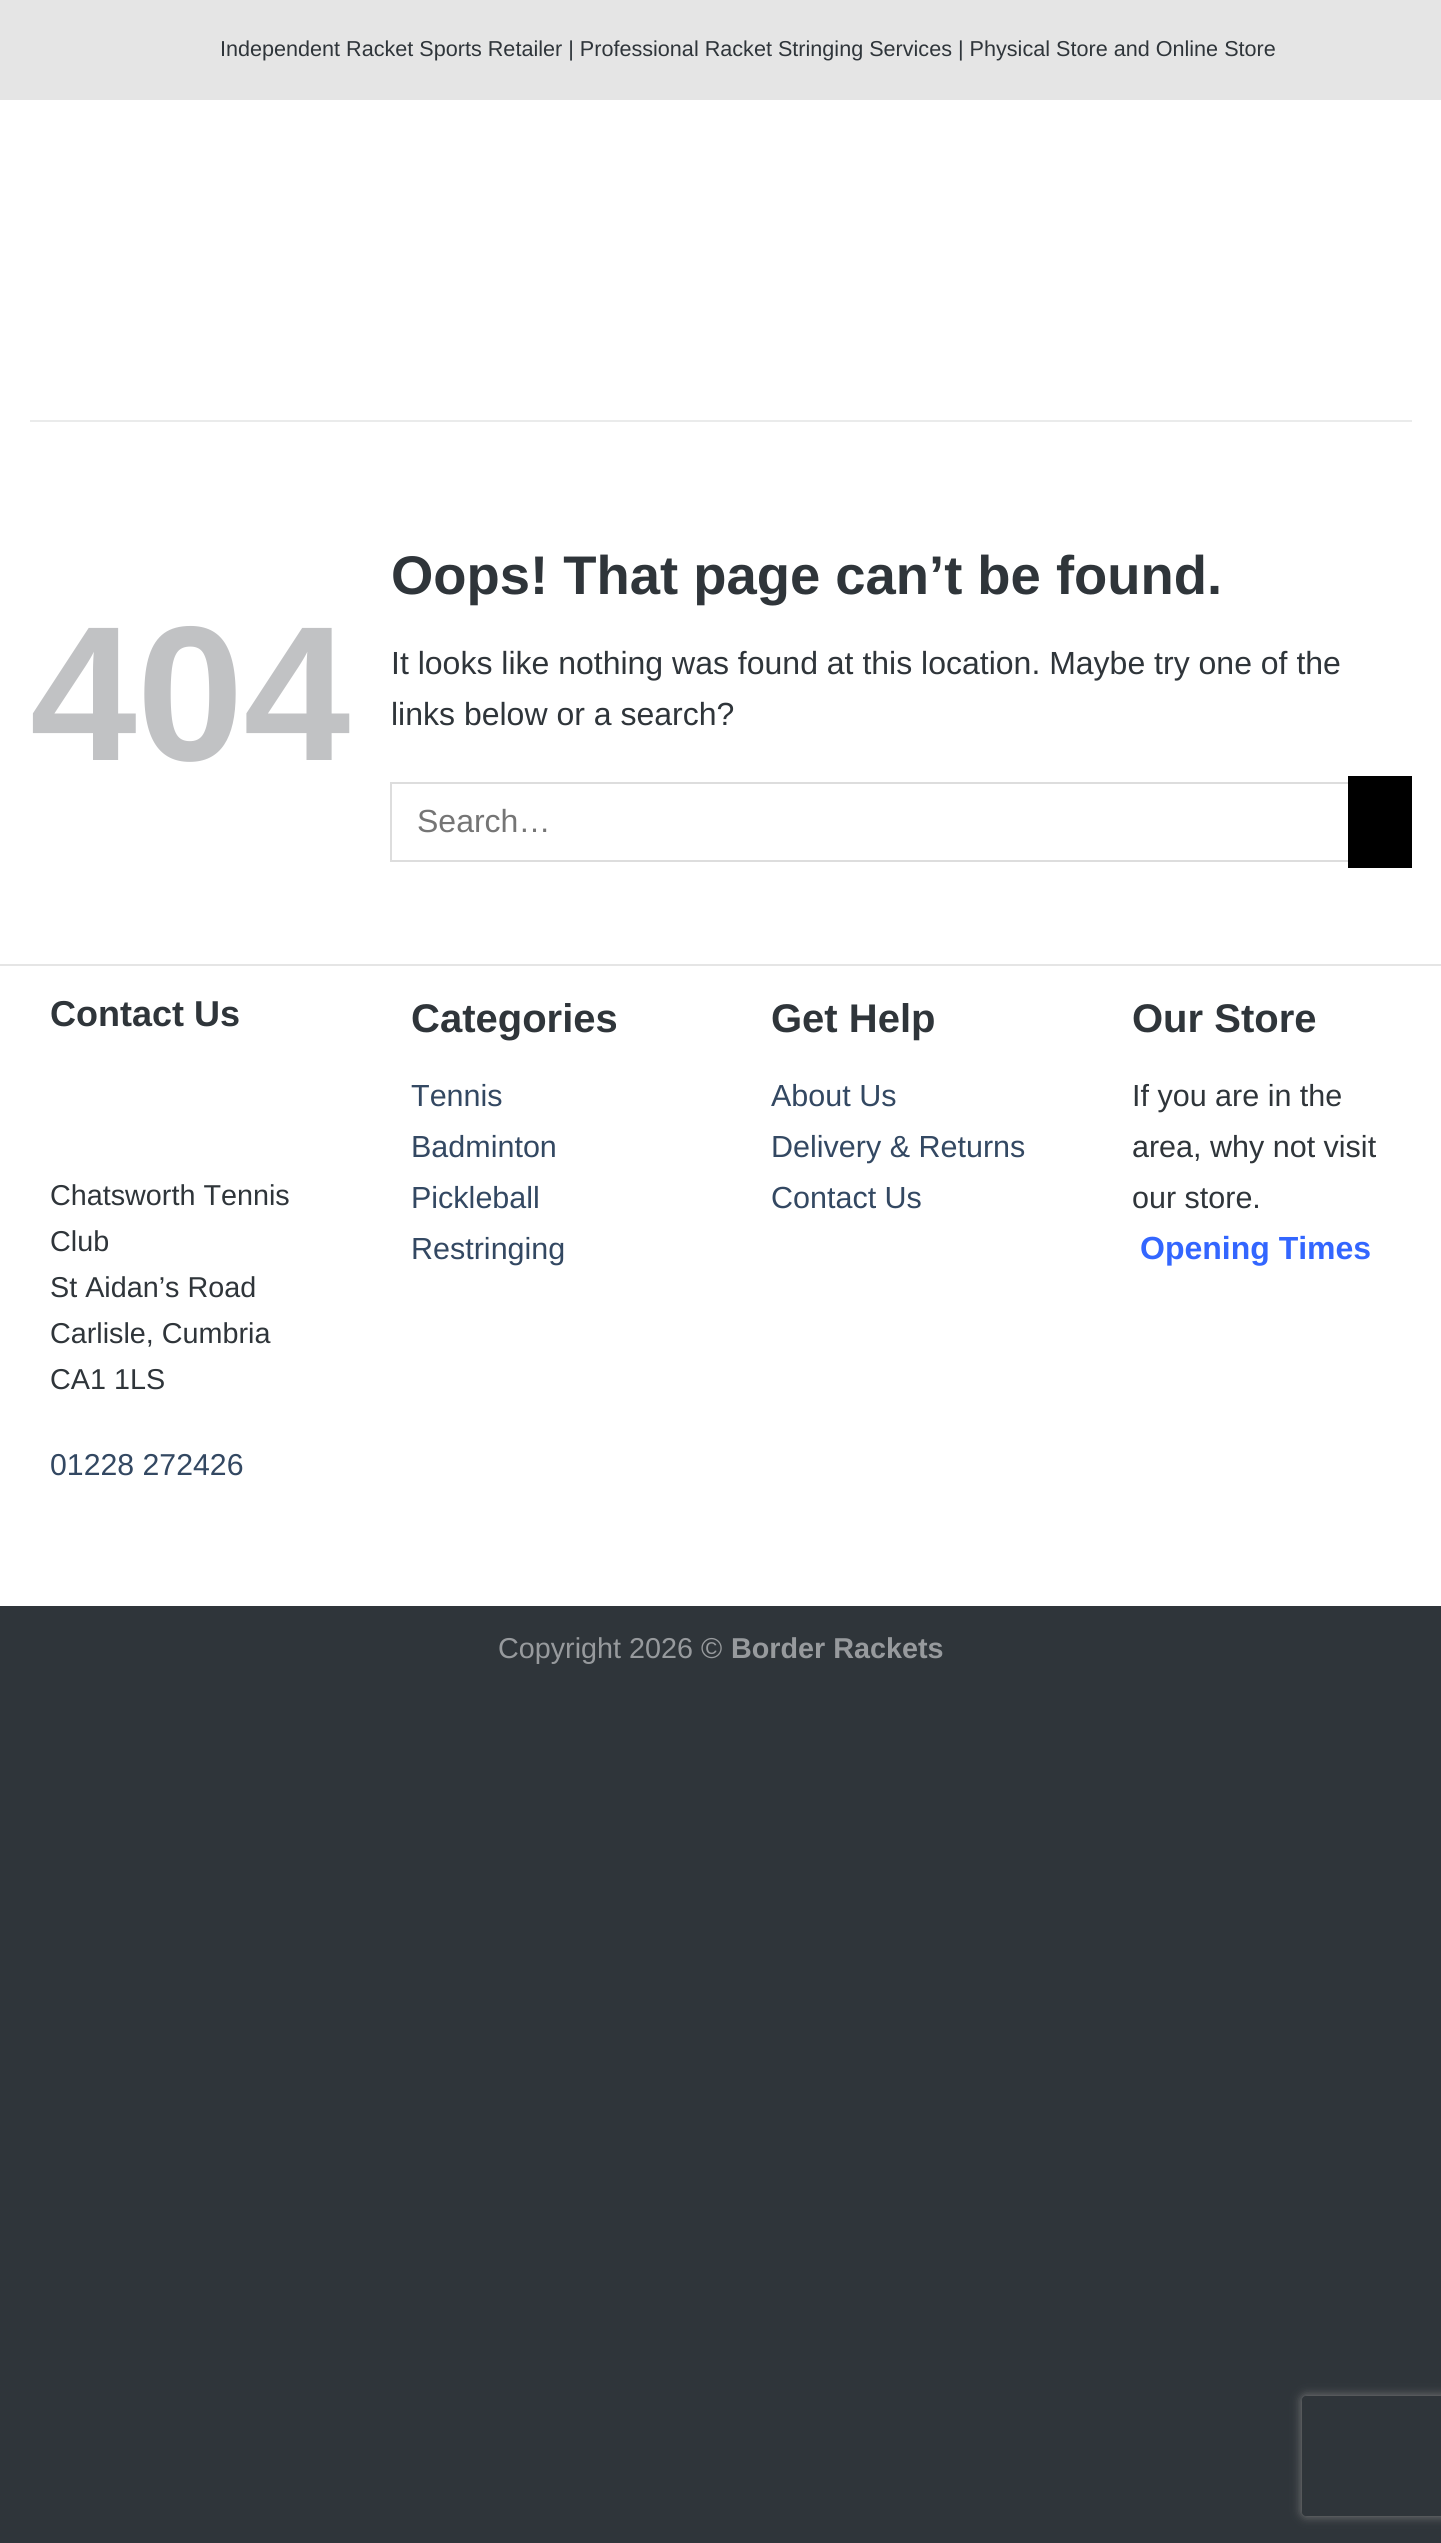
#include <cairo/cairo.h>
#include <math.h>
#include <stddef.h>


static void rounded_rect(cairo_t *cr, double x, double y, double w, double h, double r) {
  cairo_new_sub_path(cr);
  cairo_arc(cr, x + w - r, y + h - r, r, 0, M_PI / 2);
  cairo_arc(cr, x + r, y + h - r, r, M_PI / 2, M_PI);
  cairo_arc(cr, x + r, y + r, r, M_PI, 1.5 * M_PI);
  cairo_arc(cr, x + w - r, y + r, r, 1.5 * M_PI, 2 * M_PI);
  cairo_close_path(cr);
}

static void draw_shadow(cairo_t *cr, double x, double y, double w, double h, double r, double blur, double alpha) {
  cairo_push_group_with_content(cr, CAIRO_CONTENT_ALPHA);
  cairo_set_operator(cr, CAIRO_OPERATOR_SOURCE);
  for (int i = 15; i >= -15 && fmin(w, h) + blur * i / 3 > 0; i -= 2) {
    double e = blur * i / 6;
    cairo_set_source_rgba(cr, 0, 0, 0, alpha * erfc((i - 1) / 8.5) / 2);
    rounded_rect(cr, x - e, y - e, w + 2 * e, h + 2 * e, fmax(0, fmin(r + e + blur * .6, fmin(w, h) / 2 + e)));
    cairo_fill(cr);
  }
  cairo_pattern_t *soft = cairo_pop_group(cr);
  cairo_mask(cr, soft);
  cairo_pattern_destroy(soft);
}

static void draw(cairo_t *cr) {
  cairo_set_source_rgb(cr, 47 / 255.0, 53 / 255.0, 58 / 255.0);
  cairo_paint(cr);
  cairo_set_source_rgb(cr, 1, 1, 1);
  cairo_rectangle(cr, 0, 100, 1441, 1506);
  cairo_fill(cr);
  cairo_set_source_rgb(cr, 229 / 255.0, 229 / 255.0, 229 / 255.0);
  cairo_rectangle(cr, 0, 0, 1441, 100);
  cairo_fill(cr);
  cairo_set_source_rgb(cr, 234 / 255.0, 235 / 255.0, 235 / 255.0);
  cairo_rectangle(cr, 30, 420, 1382, 2);
  cairo_fill(cr);
  cairo_rectangle(cr, 391, 783, 1020, 78);
  cairo_set_source_rgb(cr, 221 / 255.0, 221 / 255.0, 221 / 255.0);
  cairo_stroke(cr);
  cairo_set_source_rgb(cr, 0, 0, 0);
  cairo_rectangle(cr, 1348, 776, 64, 92);
  cairo_fill(cr);
  cairo_set_source_rgb(cr, 229 / 255.0, 229 / 255.0, 229 / 255.0);
  cairo_rectangle(cr, 0, 964, 1441, 2);
  cairo_fill(cr);
  cairo_save(cr);
  cairo_set_fill_rule(cr, CAIRO_FILL_RULE_EVEN_ODD);
  cairo_new_path(cr);
  cairo_move_to(cr, 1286, 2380);
  cairo_line_to(cr, 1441, 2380);
  cairo_line_to(cr, 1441, 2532);
  cairo_line_to(cr, 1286, 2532);
  cairo_close_path(cr);
  cairo_move_to(cr, 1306, 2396);
  cairo_line_to(cr, 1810, 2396);
  cairo_curve_to(cr, 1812, 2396, 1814, 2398, 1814, 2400);
  cairo_line_to(cr, 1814, 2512);
  cairo_curve_to(cr, 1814, 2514, 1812, 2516, 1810, 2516);
  cairo_line_to(cr, 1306, 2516);
  cairo_curve_to(cr, 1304, 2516, 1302, 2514, 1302, 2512);
  cairo_line_to(cr, 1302, 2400);
  cairo_curve_to(cr, 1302, 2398, 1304, 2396, 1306, 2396);
  cairo_close_path(cr);
  cairo_clip(cr);
  cairo_set_source_rgb(cr, 128 / 255.0, 128 / 255.0, 128 / 255.0);
  draw_shadow(cr, 1302, 2396, 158, 120, 4, 5, 1);
  cairo_restore(cr);
  cairo_select_font_face(cr, "Liberation Sans", CAIRO_FONT_SLANT_NORMAL, CAIRO_FONT_WEIGHT_NORMAL);
  cairo_set_font_size(cr, 21.6);
  cairo_set_source_rgb(cr, 47 / 255.0, 53 / 255.0, 58 / 255.0);
  cairo_move_to(cr, 220, 56);
  cairo_show_text(cr, "Independent Racket Sports Retailer | Professional Racket Stringing Services | Physical Store and Online Store");
  cairo_select_font_face(cr, "Liberation Sans", CAIRO_FONT_SLANT_NORMAL, CAIRO_FONT_WEIGHT_BOLD);
  cairo_set_font_size(cr, 192);
  cairo_set_source_rgb(cr, 193 / 255.0, 194 / 255.0, 196 / 255.0);
  cairo_move_to(cr, 30, 760);
  cairo_show_text(cr, "404");
  cairo_set_font_size(cr, 54.4);
  cairo_set_source_rgb(cr, 47 / 255.0, 53 / 255.0, 58 / 255.0);
  cairo_move_to(cr, 391, 594);
  cairo_show_text(cr, "Oops! That page can’t be found.");
  cairo_select_font_face(cr, "Liberation Sans", CAIRO_FONT_SLANT_NORMAL, CAIRO_FONT_WEIGHT_NORMAL);
  cairo_set_font_size(cr, 32);
  cairo_move_to(cr, 391, 674);
  cairo_show_text(cr, "It looks like nothing was found at this location. Maybe try one of the");
  cairo_move_to(cr, 391, 725);
  cairo_show_text(cr, "links below or a search?");
  cairo_set_source_rgb(cr, 117 / 255.0, 117 / 255.0, 117 / 255.0);
  cairo_move_to(cr, 417, 832);
  cairo_show_text(cr, "Search…");
  cairo_select_font_face(cr, "Liberation Sans", CAIRO_FONT_SLANT_NORMAL, CAIRO_FONT_WEIGHT_BOLD);
  cairo_set_font_size(cr, 36);
  cairo_set_source_rgb(cr, 47 / 255.0, 53 / 255.0, 58 / 255.0);
  cairo_move_to(cr, 50, 1026);
  cairo_show_text(cr, "Contact Us");
  cairo_select_font_face(cr, "Liberation Sans", CAIRO_FONT_SLANT_NORMAL, CAIRO_FONT_WEIGHT_NORMAL);
  cairo_set_font_size(cr, 28.75);
  cairo_move_to(cr, 50, 1205);
  cairo_show_text(cr, "Chatsworth Tennis");
  cairo_move_to(cr, 50, 1251);
  cairo_show_text(cr, "Club");
  cairo_move_to(cr, 50, 1297);
  cairo_show_text(cr, "St Aidan’s Road");
  cairo_move_to(cr, 50, 1343);
  cairo_show_text(cr, "Carlisle, Cumbria");
  cairo_move_to(cr, 50, 1389);
  cairo_show_text(cr, "CA1 1LS");
  cairo_set_font_size(cr, 30.25);
  cairo_set_source_rgb(cr, 51 / 255.0, 72 / 255.0, 98 / 255.0);
  cairo_move_to(cr, 50, 1475);
  cairo_show_text(cr, "01228 272426");
  cairo_select_font_face(cr, "Liberation Sans", CAIRO_FONT_SLANT_NORMAL, CAIRO_FONT_WEIGHT_BOLD);
  cairo_set_font_size(cr, 40);
  cairo_set_source_rgb(cr, 47 / 255.0, 53 / 255.0, 58 / 255.0);
  cairo_move_to(cr, 411, 1032);
  cairo_show_text(cr, "Categories");
  cairo_select_font_face(cr, "Liberation Sans", CAIRO_FONT_SLANT_NORMAL, CAIRO_FONT_WEIGHT_NORMAL);
  cairo_set_font_size(cr, 30.5);
  cairo_set_source_rgb(cr, 51 / 255.0, 72 / 255.0, 98 / 255.0);
  cairo_move_to(cr, 411, 1106);
  cairo_show_text(cr, "Tennis");
  cairo_move_to(cr, 411, 1157);
  cairo_show_text(cr, "Badminton");
  cairo_move_to(cr, 411, 1208);
  cairo_show_text(cr, "Pickleball");
  cairo_move_to(cr, 411, 1259);
  cairo_show_text(cr, "Restringing");
  cairo_select_font_face(cr, "Liberation Sans", CAIRO_FONT_SLANT_NORMAL, CAIRO_FONT_WEIGHT_BOLD);
  cairo_set_font_size(cr, 40);
  cairo_set_source_rgb(cr, 47 / 255.0, 53 / 255.0, 58 / 255.0);
  cairo_move_to(cr, 771, 1032);
  cairo_show_text(cr, "Get Help");
  cairo_select_font_face(cr, "Liberation Sans", CAIRO_FONT_SLANT_NORMAL, CAIRO_FONT_WEIGHT_NORMAL);
  cairo_set_font_size(cr, 30.5);
  cairo_set_source_rgb(cr, 51 / 255.0, 72 / 255.0, 98 / 255.0);
  cairo_move_to(cr, 771, 1106);
  cairo_show_text(cr, "About Us");
  cairo_move_to(cr, 771, 1157);
  cairo_show_text(cr, "Delivery & Returns");
  cairo_move_to(cr, 771, 1208);
  cairo_show_text(cr, "Contact Us");
  cairo_select_font_face(cr, "Liberation Sans", CAIRO_FONT_SLANT_NORMAL, CAIRO_FONT_WEIGHT_BOLD);
  cairo_set_font_size(cr, 40);
  cairo_set_source_rgb(cr, 47 / 255.0, 53 / 255.0, 58 / 255.0);
  cairo_move_to(cr, 1132, 1032);
  cairo_show_text(cr, "Our Store");
  cairo_select_font_face(cr, "Liberation Sans", CAIRO_FONT_SLANT_NORMAL, CAIRO_FONT_WEIGHT_NORMAL);
  cairo_set_font_size(cr, 30.5);
  cairo_move_to(cr, 1132, 1106);
  cairo_show_text(cr, "If you are in the");
  cairo_move_to(cr, 1132, 1157);
  cairo_show_text(cr, "area, why not visit");
  cairo_move_to(cr, 1132, 1208);
  cairo_show_text(cr, "our store.");
  cairo_select_font_face(cr, "Liberation Sans", CAIRO_FONT_SLANT_NORMAL, CAIRO_FONT_WEIGHT_BOLD);
  cairo_set_font_size(cr, 32);
  cairo_set_source_rgb(cr, 51 / 255.0, 102 / 255.0, 1);
  cairo_move_to(cr, 1140, 1259);
  cairo_show_text(cr, "Opening Times");
  cairo_select_font_face(cr, "Liberation Sans", CAIRO_FONT_SLANT_NORMAL, CAIRO_FONT_WEIGHT_NORMAL);
  cairo_set_font_size(cr, 28.75);
  cairo_set_source_rgb(cr, 151 / 255.0, 154 / 255.0, 157 / 255.0);
  cairo_move_to(cr, 498, 1658);
  cairo_show_text(cr, "Copyright 2026 ©");
  cairo_select_font_face(cr, "Liberation Sans", CAIRO_FONT_SLANT_NORMAL, CAIRO_FONT_WEIGHT_BOLD);
  cairo_move_to(cr, 731, 1658);
  cairo_show_text(cr, "Border Rackets");
}

int main(void) {
  cairo_surface_t *surface = cairo_image_surface_create(CAIRO_FORMAT_RGB24, 1441, 2543);
  cairo_t *cr = cairo_create(surface);
  cairo_font_options_t *options = cairo_font_options_create();
  cairo_font_options_set_hint_metrics(options, CAIRO_HINT_METRICS_OFF);
  cairo_font_options_set_hint_style(options, CAIRO_HINT_STYLE_NONE);
  cairo_set_font_options(cr, options);
  cairo_set_miter_limit(cr, 4);
  draw(cr);
  cairo_surface_write_to_png(surface, "out.png");
  cairo_font_options_destroy(options);
  cairo_destroy(cr);
  cairo_surface_destroy(surface);
  return 0;
}
